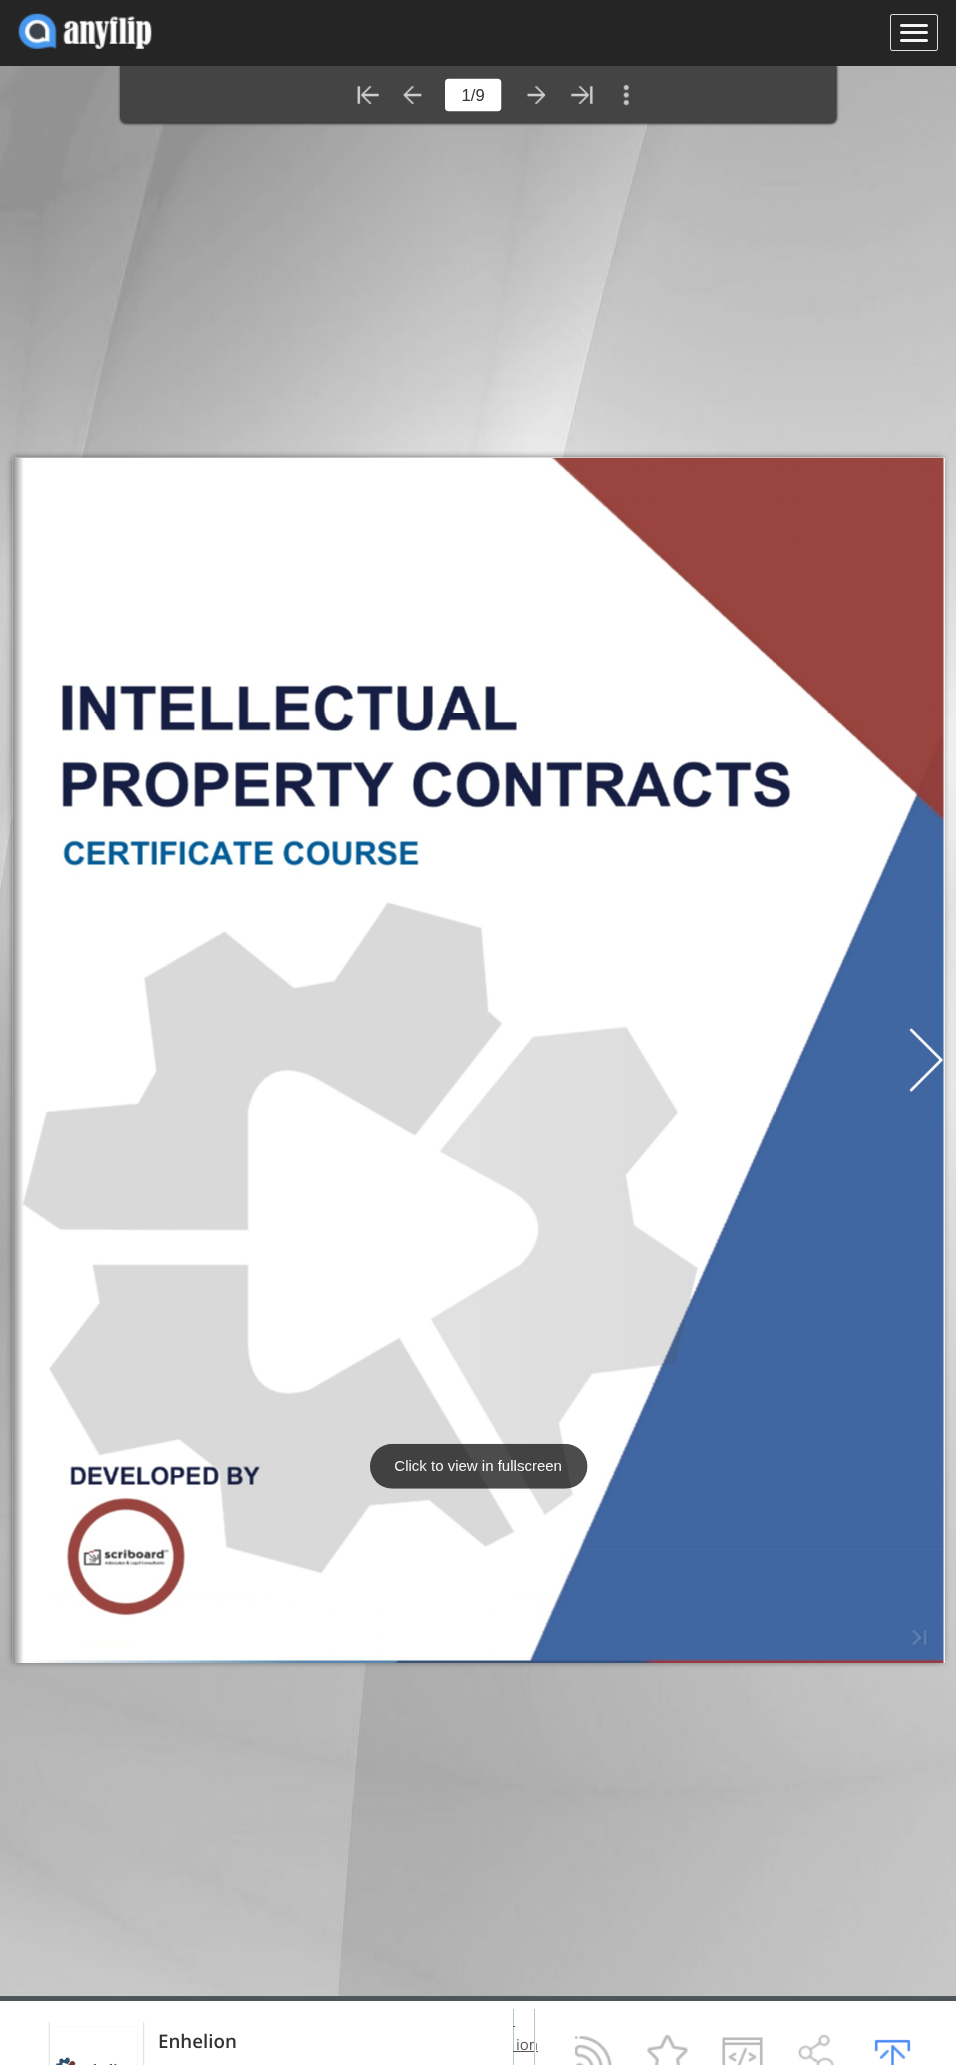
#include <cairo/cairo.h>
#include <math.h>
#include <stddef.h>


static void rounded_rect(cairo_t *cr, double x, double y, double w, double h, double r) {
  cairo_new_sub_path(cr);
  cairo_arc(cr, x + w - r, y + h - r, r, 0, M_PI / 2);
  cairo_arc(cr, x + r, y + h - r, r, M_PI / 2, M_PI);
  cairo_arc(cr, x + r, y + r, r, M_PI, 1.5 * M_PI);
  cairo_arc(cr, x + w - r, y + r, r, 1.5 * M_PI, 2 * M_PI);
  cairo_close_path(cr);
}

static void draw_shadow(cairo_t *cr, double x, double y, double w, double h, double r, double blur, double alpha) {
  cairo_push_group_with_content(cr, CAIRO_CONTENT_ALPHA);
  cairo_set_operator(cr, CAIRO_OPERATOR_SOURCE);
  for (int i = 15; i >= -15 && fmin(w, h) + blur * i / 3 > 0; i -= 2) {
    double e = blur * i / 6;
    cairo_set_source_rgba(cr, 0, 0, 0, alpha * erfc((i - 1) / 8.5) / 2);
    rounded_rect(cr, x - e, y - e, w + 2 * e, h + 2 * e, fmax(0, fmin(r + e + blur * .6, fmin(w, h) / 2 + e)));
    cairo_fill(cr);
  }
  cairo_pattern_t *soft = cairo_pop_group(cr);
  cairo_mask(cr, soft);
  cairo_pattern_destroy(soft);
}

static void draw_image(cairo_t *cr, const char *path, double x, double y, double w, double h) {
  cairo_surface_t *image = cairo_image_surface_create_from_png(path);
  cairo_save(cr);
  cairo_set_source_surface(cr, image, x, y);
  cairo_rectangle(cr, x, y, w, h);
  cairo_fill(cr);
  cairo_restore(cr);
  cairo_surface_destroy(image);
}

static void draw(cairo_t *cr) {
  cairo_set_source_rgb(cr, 1, 1, 1);
  cairo_paint(cr);
  cairo_set_source_rgb(cr, 37 / 255.0, 37 / 255.0, 37 / 255.0);
  cairo_rectangle(cr, 0, 0, 956, 66);
  cairo_fill(cr);
  draw_image(cr, "images/1.png", 18, 13, 134, 36);
  rounded_rect(cr, 890.5, 14.5, 47, 36, 2);
  cairo_set_source_rgb(cr, 222 / 255.0, 222 / 255.0, 222 / 255.0);
  cairo_set_line_width(cr, 1);
  cairo_stroke(cr);
  cairo_set_source_rgb(cr, 245 / 255.0, 245 / 255.0, 245 / 255.0);
  rounded_rect(cr, 900, 24, 28, 3, 1.5);
  cairo_fill(cr);
  rounded_rect(cr, 900, 31, 28, 3, 1.5);
  cairo_fill(cr);
  rounded_rect(cr, 900, 39, 28, 3, 1.5);
  cairo_fill(cr);
  cairo_set_source_rgb(cr, 75 / 255.0, 85 / 255.0, 90 / 255.0);
  cairo_rectangle(cr, 0, 1996, 956, 5);
  cairo_fill(cr);
  draw_image(cr, "images/2.png", 0, 66, 956, 1931);
  cairo_set_source_rgb(cr, 171 / 255.0, 167 / 255.0, 167 / 255.0);
  draw_shadow(cr, 50, 2023, 93, 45, 0, 1, 1);
  cairo_set_source_rgb(cr, 245 / 255.0, 245 / 255.0, 245 / 255.0);
  cairo_rectangle(cr, 52.5, 2023.5, 88, 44);
  cairo_fill_preserve(cr);
  cairo_set_source_rgb(cr, 1, 1, 1);
  cairo_set_line_width(cr, 5);
  cairo_stroke(cr);
  draw_image(cr, "images/3.png", 55, 2026, 82, 39);
  cairo_set_source_rgb(cr, 178 / 255.0, 199 / 255.0, 199 / 255.0);
  cairo_rectangle(cr, 513, 2009, 1, 56);
  cairo_fill(cr);
  draw_image(cr, "images/4.png", 574, 2036, 38, 29);
  draw_image(cr, "images/5.png", 647, 2034, 41, 31);
  draw_image(cr, "images/6.png", 722, 2037, 41, 28);
  draw_image(cr, "images/7.png", 798, 2034, 36, 31);
  draw_image(cr, "images/8.png", 874, 2039, 37, 26);
  cairo_set_source_rgb(cr, 85 / 255.0, 85 / 255.0, 85 / 255.0);
  cairo_rectangle(cr, 513, 2026, 2, 1);
  cairo_fill(cr);
  cairo_rectangle(cr, 513, 2051, 25, 1);
  cairo_fill(cr);
  cairo_select_font_face(cr, "Open Sans SemiBold", CAIRO_FONT_SLANT_NORMAL, CAIRO_FONT_WEIGHT_NORMAL);
  cairo_set_font_size(cr, 18.75);
  cairo_set_source_rgb(cr, 51 / 255.0, 51 / 255.0, 51 / 255.0);
  cairo_move_to(cr, 158, 2048);
  cairo_show_text(cr, "Enhelion");
  cairo_select_font_face(cr, "Open Sans", CAIRO_FONT_SLANT_NORMAL, CAIRO_FONT_WEIGHT_NORMAL);
  cairo_set_font_size(cr, 15);
  cairo_set_source_rgb(cr, 85 / 255.0, 85 / 255.0, 85 / 255.0);
  cairo_move_to(cr, 516, 2050);
  cairo_show_text(cr, "ion");
  cairo_set_source_rgb(cr, 178 / 255.0, 199 / 255.0, 199 / 255.0);
  cairo_rectangle(cr, 534, 2009, 1, 56);
  cairo_fill(cr);
  cairo_set_source_rgb(cr, 1, 1, 1);
  cairo_rectangle(cr, 535, 2042, 1, 10);
  cairo_fill(cr);
}

int main(void) {
  cairo_surface_t *surface = cairo_image_surface_create(CAIRO_FORMAT_RGB24, 956, 2065);
  cairo_t *cr = cairo_create(surface);
  cairo_font_options_t *options = cairo_font_options_create();
  cairo_font_options_set_hint_metrics(options, CAIRO_HINT_METRICS_OFF);
  cairo_font_options_set_hint_style(options, CAIRO_HINT_STYLE_NONE);
  cairo_set_font_options(cr, options);
  cairo_set_miter_limit(cr, 4);
  draw(cr);
  cairo_surface_write_to_png(surface, "out.png");
  cairo_font_options_destroy(options);
  cairo_destroy(cr);
  cairo_surface_destroy(surface);
  return 0;
}
